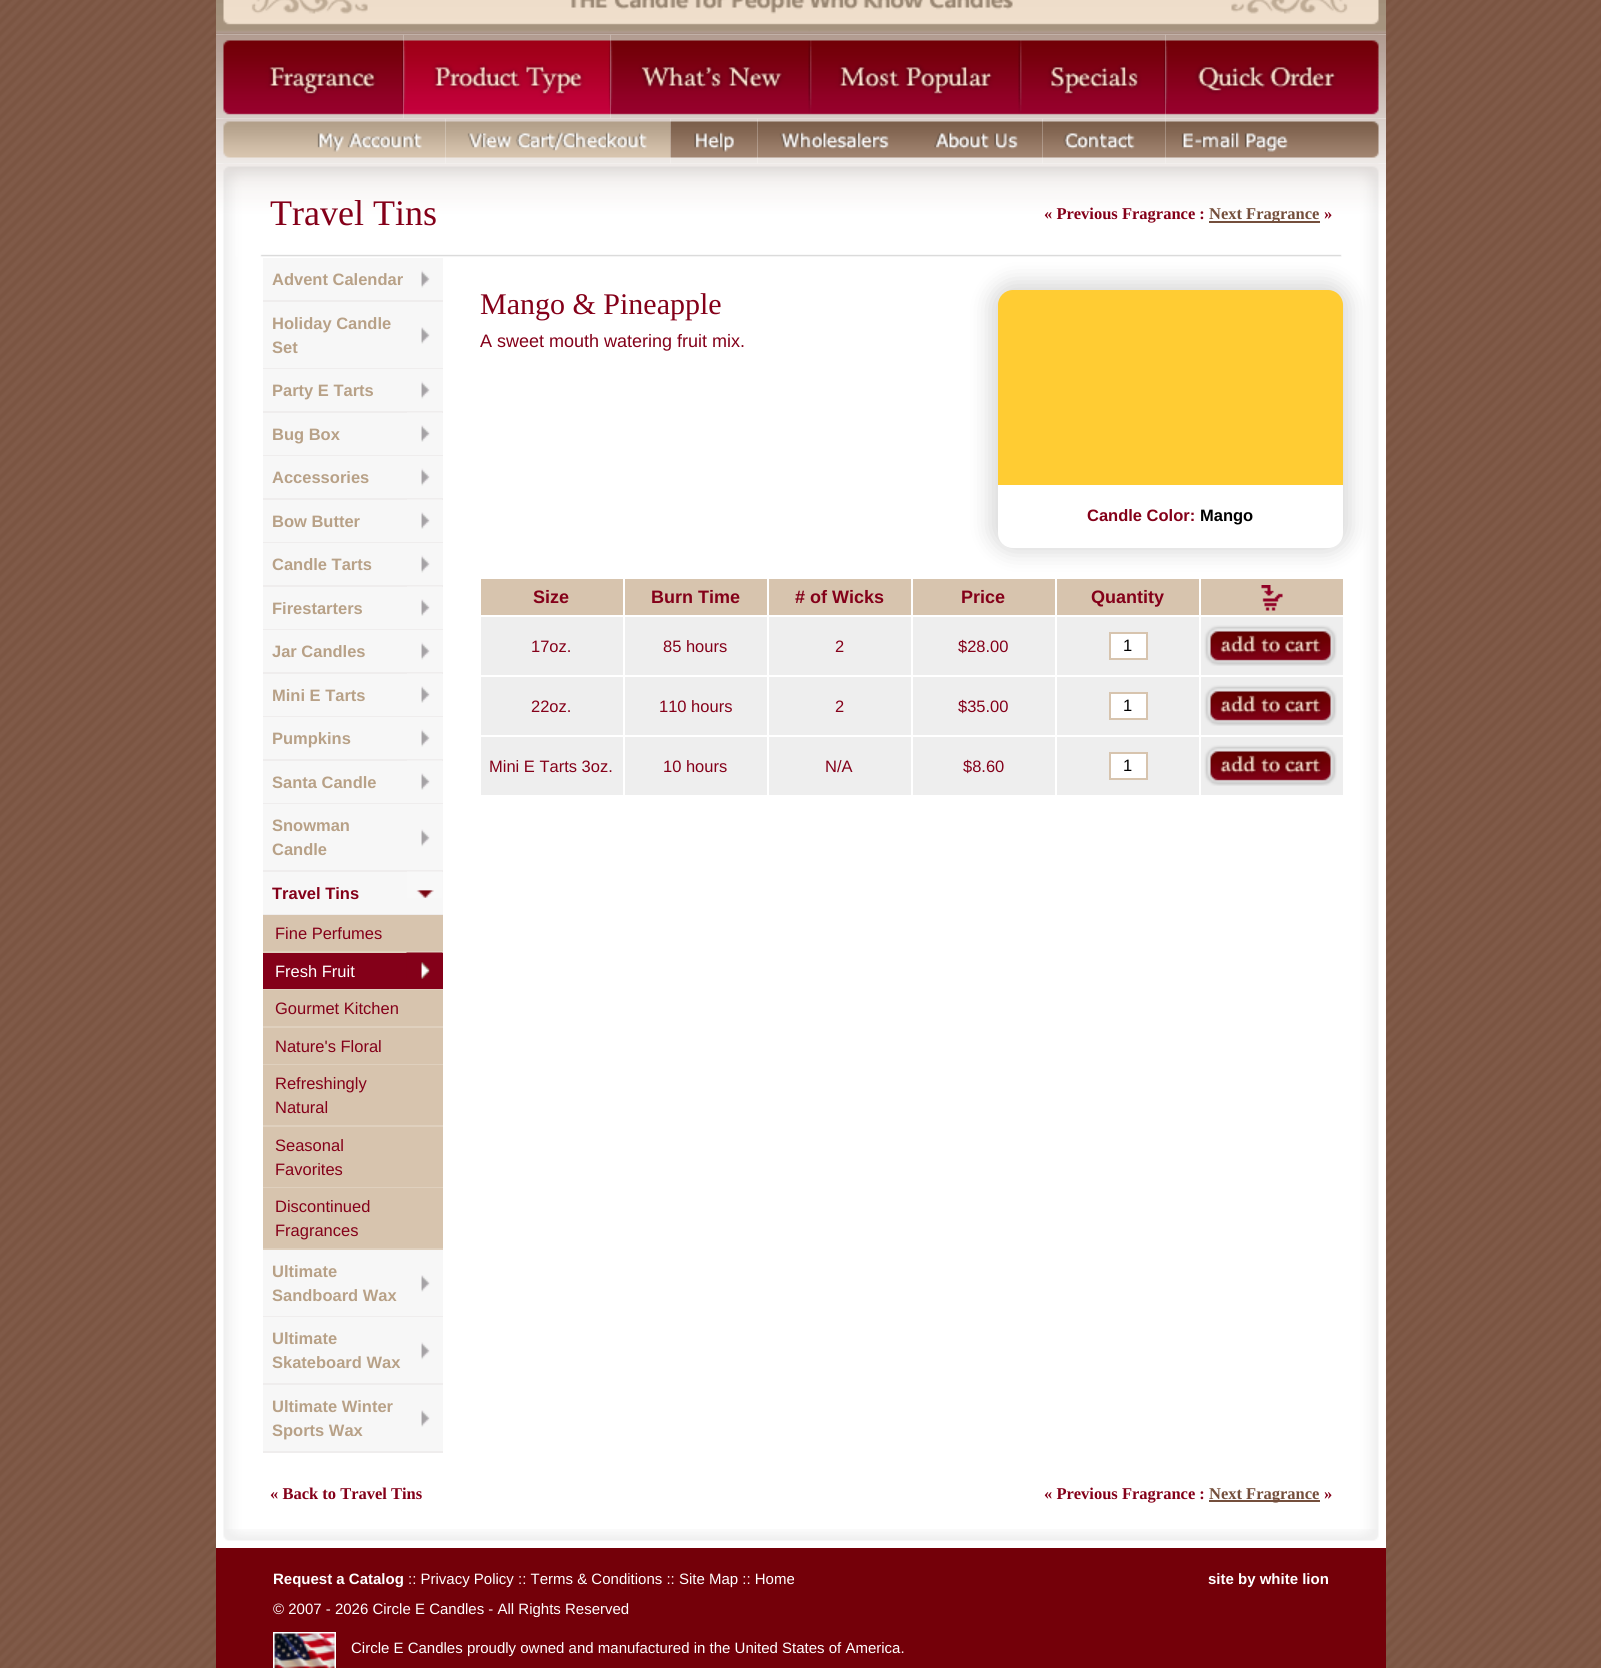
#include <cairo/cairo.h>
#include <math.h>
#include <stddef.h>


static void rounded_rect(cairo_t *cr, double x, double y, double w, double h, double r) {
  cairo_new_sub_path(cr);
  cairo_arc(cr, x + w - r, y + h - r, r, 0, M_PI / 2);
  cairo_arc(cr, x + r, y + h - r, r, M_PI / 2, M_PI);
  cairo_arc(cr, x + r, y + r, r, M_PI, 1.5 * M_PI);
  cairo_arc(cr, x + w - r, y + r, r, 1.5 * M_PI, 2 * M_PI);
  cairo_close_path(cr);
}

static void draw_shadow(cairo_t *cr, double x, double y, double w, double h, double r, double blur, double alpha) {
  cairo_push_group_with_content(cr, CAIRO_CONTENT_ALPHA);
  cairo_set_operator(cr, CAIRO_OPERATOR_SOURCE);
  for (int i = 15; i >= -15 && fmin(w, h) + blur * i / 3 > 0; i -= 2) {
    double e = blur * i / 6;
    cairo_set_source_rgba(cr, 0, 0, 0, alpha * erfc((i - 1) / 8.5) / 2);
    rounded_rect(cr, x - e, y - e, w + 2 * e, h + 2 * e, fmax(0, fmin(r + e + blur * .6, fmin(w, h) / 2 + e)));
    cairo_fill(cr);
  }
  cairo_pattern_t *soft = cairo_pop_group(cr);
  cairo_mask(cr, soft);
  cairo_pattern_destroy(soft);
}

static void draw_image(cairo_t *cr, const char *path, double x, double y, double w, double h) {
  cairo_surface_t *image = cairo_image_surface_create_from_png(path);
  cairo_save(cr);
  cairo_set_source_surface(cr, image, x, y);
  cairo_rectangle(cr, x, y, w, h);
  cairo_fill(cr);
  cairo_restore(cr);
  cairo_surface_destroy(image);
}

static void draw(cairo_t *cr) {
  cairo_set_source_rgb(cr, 1, 1, 1);
  cairo_paint(cr);
  draw_image(cr, "images/1.png", 0, 0, 1601, 1668);
  draw_image(cr, "images/2.png", 216, 34, 1170, 1514);
  draw_image(cr, "images/3.png", 216, 0, 1170, 35);
  draw_image(cr, "images/17.png", 216, 163, 1170, 94);
  draw_image(cr, "images/10.png", 216, 118, 230, 46);
  draw_image(cr, "images/4.png", 216, 34, 188, 85);
  draw_image(cr, "images/11.png", 445, 118, 226, 46);
  draw_image(cr, "images/5.png", 403, 34, 208, 85);
  draw_image(cr, "images/12.png", 670, 118, 88, 46);
  draw_image(cr, "images/13.png", 757, 118, 155, 46);
  draw_image(cr, "images/6.png", 610, 34, 200, 85);
  draw_image(cr, "images/14.png", 912, 118, 131, 46);
  draw_image(cr, "images/7.png", 810, 34, 210, 85);
  draw_image(cr, "images/15.png", 1042, 118, 124, 46);
  draw_image(cr, "images/16.png", 1165, 118, 221, 46);
  draw_image(cr, "images/8.png", 1020, 34, 146, 85);
  draw_image(cr, "images/9.png", 1165, 34, 221, 85);
  cairo_set_source_rgb(cr, 116 / 255.0, 79 / 255.0, 60 / 255.0);
  cairo_rectangle(cr, 1209, 221, 111, 2);
  cairo_fill(cr);
  cairo_set_source_rgba(cr, 1, 1, 1, 0.5);
  cairo_rectangle(cr, 261, 256, 1080, 1);
  cairo_fill(cr);
  cairo_set_source_rgb(cr, 247 / 255.0, 247 / 255.0, 247 / 255.0);
  cairo_rectangle(cr, 263, 258, 180, 42);
  cairo_fill(cr);
  draw_image(cr, "images/18.png", 421, 270, 9, 18);
  cairo_set_source_rgb(cr, 239 / 255.0, 237 / 255.0, 237 / 255.0);
  cairo_rectangle(cr, 263, 300, 180, 2);
  cairo_fill(cr);
  cairo_set_source_rgb(cr, 247 / 255.0, 247 / 255.0, 247 / 255.0);
  cairo_rectangle(cr, 263, 302, 180, 66);
  cairo_fill(cr);
  draw_image(cr, "images/19.png", 421, 327, 9, 17);
  cairo_set_source_rgb(cr, 239 / 255.0, 237 / 255.0, 237 / 255.0);
  cairo_rectangle(cr, 263, 368, 180, 1);
  cairo_fill(cr);
  cairo_set_source_rgb(cr, 247 / 255.0, 247 / 255.0, 247 / 255.0);
  cairo_rectangle(cr, 263, 369, 180, 42);
  cairo_fill(cr);
  draw_image(cr, "images/18.png", 421, 381, 9, 18);
  cairo_set_source_rgb(cr, 239 / 255.0, 237 / 255.0, 237 / 255.0);
  cairo_rectangle(cr, 263, 411, 180, 2);
  cairo_fill(cr);
  cairo_set_source_rgb(cr, 247 / 255.0, 247 / 255.0, 247 / 255.0);
  cairo_rectangle(cr, 263, 413, 180, 42);
  cairo_fill(cr);
  draw_image(cr, "images/20.png", 407, 412, 35, 30);
  cairo_set_source_rgb(cr, 239 / 255.0, 237 / 255.0, 237 / 255.0);
  cairo_rectangle(cr, 263, 455, 180, 1);
  cairo_fill(cr);
  cairo_set_source_rgb(cr, 247 / 255.0, 247 / 255.0, 247 / 255.0);
  cairo_rectangle(cr, 263, 456, 180, 42);
  cairo_fill(cr);
  draw_image(cr, "images/18.png", 421, 468, 9, 18);
  cairo_set_source_rgb(cr, 239 / 255.0, 237 / 255.0, 237 / 255.0);
  cairo_rectangle(cr, 263, 498, 180, 2);
  cairo_fill(cr);
  cairo_set_source_rgb(cr, 247 / 255.0, 247 / 255.0, 247 / 255.0);
  cairo_rectangle(cr, 263, 500, 180, 42);
  cairo_fill(cr);
  draw_image(cr, "images/20.png", 407, 499, 35, 30);
  cairo_set_source_rgb(cr, 239 / 255.0, 237 / 255.0, 237 / 255.0);
  cairo_rectangle(cr, 263, 542, 180, 1);
  cairo_fill(cr);
  cairo_set_source_rgb(cr, 247 / 255.0, 247 / 255.0, 247 / 255.0);
  cairo_rectangle(cr, 263, 543, 180, 42);
  cairo_fill(cr);
  draw_image(cr, "images/18.png", 421, 555, 9, 18);
  cairo_set_source_rgb(cr, 239 / 255.0, 237 / 255.0, 237 / 255.0);
  cairo_rectangle(cr, 263, 585, 180, 2);
  cairo_fill(cr);
  cairo_set_source_rgb(cr, 247 / 255.0, 247 / 255.0, 247 / 255.0);
  cairo_rectangle(cr, 263, 587, 180, 42);
  cairo_fill(cr);
  draw_image(cr, "images/20.png", 407, 586, 35, 30);
  cairo_set_source_rgb(cr, 239 / 255.0, 237 / 255.0, 237 / 255.0);
  cairo_rectangle(cr, 263, 629, 180, 1);
  cairo_fill(cr);
  cairo_set_source_rgb(cr, 247 / 255.0, 247 / 255.0, 247 / 255.0);
  cairo_rectangle(cr, 263, 630, 180, 42);
  cairo_fill(cr);
  draw_image(cr, "images/18.png", 421, 642, 9, 18);
  cairo_set_source_rgb(cr, 239 / 255.0, 237 / 255.0, 237 / 255.0);
  cairo_rectangle(cr, 263, 672, 180, 2);
  cairo_fill(cr);
  cairo_set_source_rgb(cr, 247 / 255.0, 247 / 255.0, 247 / 255.0);
  cairo_rectangle(cr, 263, 674, 180, 42);
  cairo_fill(cr);
  draw_image(cr, "images/20.png", 407, 673, 35, 30);
  cairo_set_source_rgb(cr, 239 / 255.0, 237 / 255.0, 237 / 255.0);
  cairo_rectangle(cr, 263, 716, 180, 1);
  cairo_fill(cr);
  cairo_set_source_rgb(cr, 247 / 255.0, 247 / 255.0, 247 / 255.0);
  cairo_rectangle(cr, 263, 717, 180, 42);
  cairo_fill(cr);
  draw_image(cr, "images/18.png", 421, 729, 9, 18);
  cairo_set_source_rgb(cr, 239 / 255.0, 237 / 255.0, 237 / 255.0);
  cairo_rectangle(cr, 263, 759, 180, 2);
  cairo_fill(cr);
  cairo_set_source_rgb(cr, 247 / 255.0, 247 / 255.0, 247 / 255.0);
  cairo_rectangle(cr, 263, 761, 180, 42);
  cairo_fill(cr);
  draw_image(cr, "images/20.png", 407, 760, 35, 30);
  cairo_set_source_rgb(cr, 239 / 255.0, 237 / 255.0, 237 / 255.0);
  cairo_rectangle(cr, 263, 803, 180, 1);
  cairo_fill(cr);
  cairo_set_source_rgb(cr, 247 / 255.0, 247 / 255.0, 247 / 255.0);
  cairo_rectangle(cr, 263, 804, 180, 66);
  cairo_fill(cr);
  draw_image(cr, "images/21.png", 421, 829, 9, 18);
  cairo_set_source_rgb(cr, 239 / 255.0, 237 / 255.0, 237 / 255.0);
  cairo_rectangle(cr, 263, 870, 180, 2);
  cairo_fill(cr);
  cairo_set_source_rgb(cr, 247 / 255.0, 247 / 255.0, 247 / 255.0);
  cairo_rectangle(cr, 263, 872, 180, 42);
  cairo_fill(cr);
  draw_image(cr, "images/22.png", 407, 871, 35, 27);
  cairo_set_source_rgb(cr, 239 / 255.0, 237 / 255.0, 237 / 255.0);
  cairo_rectangle(cr, 263, 914, 180, 1);
  cairo_fill(cr);
  cairo_set_source_rgb(cr, 215 / 255.0, 196 / 255.0, 174 / 255.0);
  cairo_rectangle(cr, 263, 915, 180, 36);
  cairo_fill(cr);
  cairo_set_source_rgb(cr, 223 / 255.0, 208 / 255.0, 190 / 255.0);
  cairo_rectangle(cr, 263, 951, 180, 2);
  cairo_fill(cr);
  cairo_set_source_rgb(cr, 132 / 255.0, 0, 25 / 255.0);
  cairo_rectangle(cr, 263, 953, 180, 36);
  cairo_fill(cr);
  draw_image(cr, "images/23.png", 406, 952, 37, 27);
  cairo_set_source_rgb(cr, 223 / 255.0, 208 / 255.0, 190 / 255.0);
  cairo_rectangle(cr, 263, 989, 180, 1);
  cairo_fill(cr);
  cairo_set_source_rgb(cr, 215 / 255.0, 196 / 255.0, 174 / 255.0);
  cairo_rectangle(cr, 263, 990, 180, 36);
  cairo_fill(cr);
  cairo_set_source_rgb(cr, 223 / 255.0, 208 / 255.0, 190 / 255.0);
  cairo_rectangle(cr, 263, 1026, 180, 2);
  cairo_fill(cr);
  cairo_set_source_rgb(cr, 215 / 255.0, 196 / 255.0, 174 / 255.0);
  cairo_rectangle(cr, 263, 1028, 180, 36);
  cairo_fill(cr);
  cairo_set_source_rgb(cr, 223 / 255.0, 208 / 255.0, 190 / 255.0);
  cairo_rectangle(cr, 263, 1064, 180, 1);
  cairo_fill(cr);
  cairo_set_source_rgb(cr, 215 / 255.0, 196 / 255.0, 174 / 255.0);
  cairo_rectangle(cr, 263, 1065, 180, 60);
  cairo_fill(cr);
  cairo_set_source_rgb(cr, 223 / 255.0, 208 / 255.0, 190 / 255.0);
  cairo_rectangle(cr, 263, 1125, 180, 2);
  cairo_fill(cr);
  cairo_set_source_rgb(cr, 215 / 255.0, 196 / 255.0, 174 / 255.0);
  cairo_rectangle(cr, 263, 1127, 180, 60);
  cairo_fill(cr);
  cairo_set_source_rgb(cr, 223 / 255.0, 208 / 255.0, 190 / 255.0);
  cairo_rectangle(cr, 263, 1187, 180, 1);
  cairo_fill(cr);
  cairo_set_source_rgb(cr, 215 / 255.0, 196 / 255.0, 174 / 255.0);
  cairo_rectangle(cr, 263, 1188, 180, 60);
  cairo_fill(cr);
  cairo_set_source_rgb(cr, 223 / 255.0, 208 / 255.0, 190 / 255.0);
  cairo_rectangle(cr, 263, 1248, 180, 2);
  cairo_fill(cr);
  cairo_set_source_rgb(cr, 247 / 255.0, 247 / 255.0, 247 / 255.0);
  cairo_rectangle(cr, 263, 1250, 180, 66);
  cairo_fill(cr);
  draw_image(cr, "images/19.png", 421, 1275, 9, 17);
  cairo_set_source_rgb(cr, 239 / 255.0, 237 / 255.0, 237 / 255.0);
  cairo_rectangle(cr, 263, 1316, 180, 1);
  cairo_fill(cr);
  cairo_set_source_rgb(cr, 247 / 255.0, 247 / 255.0, 247 / 255.0);
  cairo_rectangle(cr, 263, 1317, 180, 66);
  cairo_fill(cr);
  draw_image(cr, "images/21.png", 421, 1342, 9, 18);
  cairo_set_source_rgb(cr, 239 / 255.0, 237 / 255.0, 237 / 255.0);
  cairo_rectangle(cr, 263, 1383, 180, 2);
  cairo_fill(cr);
  cairo_set_source_rgb(cr, 247 / 255.0, 247 / 255.0, 247 / 255.0);
  cairo_rectangle(cr, 263, 1385, 180, 66);
  cairo_fill(cr);
  draw_image(cr, "images/19.png", 421, 1410, 9, 17);
  cairo_set_source_rgb(cr, 239 / 255.0, 237 / 255.0, 237 / 255.0);
  cairo_rectangle(cr, 263, 1451, 180, 2);
  cairo_fill(cr);
  cairo_set_source_rgb(cr, 215 / 255.0, 196 / 255.0, 174 / 255.0);
  cairo_rectangle(cr, 913, 579, 142, 36);
  cairo_fill(cr);
  cairo_rectangle(cr, 1057, 579, 142, 36);
  cairo_fill(cr);
  cairo_rectangle(cr, 1201, 579, 142, 36);
  cairo_fill(cr);
  cairo_set_source_rgb(cr, 0, 0, 0);
  draw_shadow(cr, 990, 282, 360, 270, 23, 11, 0.15);
  cairo_set_source_rgb(cr, 1, 204 / 255.0, 51 / 255.0);
  rounded_rect(cr, 998, 290, 345, 255, 15);
  cairo_fill(cr);
  cairo_set_source_rgb(cr, 1, 1, 1);
  cairo_new_path(cr);
  cairo_move_to(cr, 998, 485);
  cairo_line_to(cr, 1343, 485);
  cairo_line_to(cr, 1343, 533);
  cairo_curve_to(cr, 1343, 541.5, 1336.5, 548, 1328, 548);
  cairo_line_to(cr, 1013, 548);
  cairo_curve_to(cr, 1004.5, 548, 998, 541.5, 998, 533);
  cairo_close_path(cr);
  cairo_fill(cr);
  cairo_set_source_rgb(cr, 238 / 255.0, 238 / 255.0, 238 / 255.0);
  cairo_rectangle(cr, 481, 617, 862, 178);
  cairo_fill(cr);
  cairo_set_source_rgb(cr, 215 / 255.0, 196 / 255.0, 174 / 255.0);
  cairo_rectangle(cr, 481, 579, 142, 36);
  cairo_fill(cr);
  cairo_rectangle(cr, 625, 579, 142, 36);
  cairo_fill(cr);
  cairo_rectangle(cr, 769, 579, 142, 36);
  cairo_fill(cr);
  draw_image(cr, "images/24.png", 1261, 585, 22, 26);
  cairo_set_source_rgb(cr, 1, 1, 1);
  cairo_rectangle(cr, 1199, 675, 145, 2);
  cairo_fill(cr);
  cairo_rectangle(cr, 1199, 735, 145, 2);
  cairo_fill(cr);
  cairo_rectangle(cr, 1199, 735, 2, 62);
  cairo_fill(cr);
  cairo_rectangle(cr, 1055, 735, 145, 2);
  cairo_fill(cr);
  cairo_rectangle(cr, 1199, 675, 2, 62);
  cairo_fill(cr);
  cairo_rectangle(cr, 1055, 675, 145, 2);
  cairo_fill(cr);
  cairo_rectangle(cr, 1055, 735, 2, 62);
  cairo_fill(cr);
  cairo_rectangle(cr, 911, 735, 145, 2);
  cairo_fill(cr);
  cairo_rectangle(cr, 1055, 675, 2, 62);
  cairo_fill(cr);
  cairo_rectangle(cr, 911, 675, 145, 2);
  cairo_fill(cr);
  cairo_rectangle(cr, 911, 735, 2, 62);
  cairo_fill(cr);
  cairo_rectangle(cr, 767, 735, 145, 2);
  cairo_fill(cr);
  cairo_rectangle(cr, 911, 675, 2, 62);
  cairo_fill(cr);
  cairo_rectangle(cr, 767, 675, 145, 2);
  cairo_fill(cr);
  cairo_rectangle(cr, 767, 735, 2, 62);
  cairo_fill(cr);
  cairo_rectangle(cr, 623, 735, 145, 2);
  cairo_fill(cr);
  cairo_rectangle(cr, 767, 675, 2, 62);
  cairo_fill(cr);
  cairo_rectangle(cr, 623, 675, 145, 2);
  cairo_fill(cr);
  cairo_rectangle(cr, 623, 735, 2, 62);
  cairo_fill(cr);
  cairo_rectangle(cr, 479, 735, 145, 2);
  cairo_fill(cr);
  cairo_rectangle(cr, 623, 675, 2, 62);
  cairo_fill(cr);
  cairo_rectangle(cr, 479, 675, 145, 2);
  cairo_fill(cr);
  cairo_rectangle(cr, 623, 615, 2, 62);
  cairo_fill(cr);
  cairo_rectangle(cr, 767, 615, 2, 62);
  cairo_fill(cr);
  cairo_rectangle(cr, 911, 615, 2, 62);
  cairo_fill(cr);
  cairo_rectangle(cr, 1055, 615, 2, 62);
  cairo_fill(cr);
  cairo_rectangle(cr, 1110, 633, 37, 26);
  cairo_fill_preserve(cr);
  cairo_set_source_rgb(cr, 215 / 255.0, 196 / 255.0, 174 / 255.0);
  cairo_stroke(cr);
  cairo_set_source_rgb(cr, 1, 1, 1);
  cairo_rectangle(cr, 1199, 615, 2, 62);
  cairo_fill(cr);
  draw_image(cr, "images/25.png", 1204, 625, 133, 41);
  cairo_rectangle(cr, 1110, 693, 37, 26);
  cairo_fill_preserve(cr);
  cairo_set_source_rgb(cr, 215 / 255.0, 196 / 255.0, 174 / 255.0);
  cairo_stroke(cr);
  draw_image(cr, "images/25.png", 1204, 685, 133, 41);
  cairo_set_source_rgb(cr, 1, 1, 1);
  cairo_rectangle(cr, 1110, 753, 37, 26);
  cairo_fill_preserve(cr);
  cairo_set_source_rgb(cr, 215 / 255.0, 196 / 255.0, 174 / 255.0);
  cairo_stroke(cr);
  draw_image(cr, "images/25.png", 1204, 745, 133, 41);
  draw_image(cr, "images/26.png", 223, 1529, 1156, 19);
  cairo_set_source_rgb(cr, 116 / 255.0, 79 / 255.0, 60 / 255.0);
  cairo_rectangle(cr, 1209, 1500, 111, 2);
  cairo_fill(cr);
  cairo_set_source_rgb(cr, 116 / 255.0, 0, 9 / 255.0);
  cairo_rectangle(cr, 216, 1548, 1170, 120);
  cairo_fill(cr);
  draw_image(cr, "images/27.png", 273, 1632, 63, 36);
  cairo_select_font_face(cr, "Liberation Serif", CAIRO_FONT_SLANT_NORMAL, CAIRO_FONT_WEIGHT_NORMAL);
  cairo_set_font_size(cr, 36);
  cairo_set_source_rgb(cr, 132 / 255.0, 0, 25 / 255.0);
  cairo_move_to(cr, 270, 225);
  cairo_show_text(cr, "Travel Tins");
  cairo_select_font_face(cr, "Liberation Serif", CAIRO_FONT_SLANT_NORMAL, CAIRO_FONT_WEIGHT_BOLD);
  cairo_set_font_size(cr, 16.5);
  cairo_move_to(cr, 1044, 219);
  cairo_show_text(cr, "« Previous Fragrance :");
  cairo_set_source_rgb(cr, 116 / 255.0, 79 / 255.0, 60 / 255.0);
  cairo_move_to(cr, 1209, 219);
  cairo_show_text(cr, "Next Fragrance");
  cairo_set_source_rgb(cr, 132 / 255.0, 0, 25 / 255.0);
  cairo_move_to(cr, 1324, 219);
  cairo_show_text(cr, "»");
  cairo_select_font_face(cr, "Liberation Sans", CAIRO_FONT_SLANT_NORMAL, CAIRO_FONT_WEIGHT_BOLD);
  cairo_set_source_rgb(cr, 184 / 255.0, 161 / 255.0, 135 / 255.0);
  cairo_move_to(cr, 272, 285);
  cairo_show_text(cr, "Advent Calendar");
  cairo_move_to(cr, 272, 329);
  cairo_show_text(cr, "Holiday Candle");
  cairo_move_to(cr, 272, 353);
  cairo_show_text(cr, "Set");
  cairo_move_to(cr, 272, 396);
  cairo_show_text(cr, "Party E Tarts");
  cairo_move_to(cr, 272, 440);
  cairo_show_text(cr, "Bug Box");
  cairo_move_to(cr, 272, 483);
  cairo_show_text(cr, "Accessories");
  cairo_move_to(cr, 272, 527);
  cairo_show_text(cr, "Bow Butter");
  cairo_move_to(cr, 272, 570);
  cairo_show_text(cr, "Candle Tarts");
  cairo_move_to(cr, 272, 614);
  cairo_show_text(cr, "Firestarters");
  cairo_move_to(cr, 272, 657);
  cairo_show_text(cr, "Jar Candles");
  cairo_move_to(cr, 272, 701);
  cairo_show_text(cr, "Mini E Tarts");
  cairo_move_to(cr, 272, 744);
  cairo_show_text(cr, "Pumpkins");
  cairo_move_to(cr, 272, 788);
  cairo_show_text(cr, "Santa Candle");
  cairo_move_to(cr, 272, 831);
  cairo_show_text(cr, "Snowman");
  cairo_move_to(cr, 272, 855);
  cairo_show_text(cr, "Candle");
  cairo_set_source_rgb(cr, 132 / 255.0, 0, 25 / 255.0);
  cairo_move_to(cr, 272, 899);
  cairo_show_text(cr, "Travel Tins");
  cairo_select_font_face(cr, "Liberation Sans", CAIRO_FONT_SLANT_NORMAL, CAIRO_FONT_WEIGHT_NORMAL);
  cairo_move_to(cr, 275, 939);
  cairo_show_text(cr, "Fine Perfumes");
  cairo_set_source_rgb(cr, 1, 1, 1);
  cairo_move_to(cr, 275, 977);
  cairo_show_text(cr, "Fresh Fruit");
  cairo_set_source_rgb(cr, 132 / 255.0, 0, 25 / 255.0);
  cairo_move_to(cr, 275, 1014);
  cairo_show_text(cr, "Gourmet Kitchen");
  cairo_move_to(cr, 275, 1052);
  cairo_show_text(cr, "Nature's Floral");
  cairo_move_to(cr, 275, 1089);
  cairo_show_text(cr, "Refreshingly");
  cairo_move_to(cr, 275, 1113);
  cairo_show_text(cr, "Natural");
  cairo_move_to(cr, 275, 1151);
  cairo_show_text(cr, "Seasonal");
  cairo_move_to(cr, 275, 1175);
  cairo_show_text(cr, "Favorites");
  cairo_move_to(cr, 275, 1212);
  cairo_show_text(cr, "Discontinued");
  cairo_move_to(cr, 275, 1236);
  cairo_show_text(cr, "Fragrances");
  cairo_select_font_face(cr, "Liberation Sans", CAIRO_FONT_SLANT_NORMAL, CAIRO_FONT_WEIGHT_BOLD);
  cairo_set_source_rgb(cr, 184 / 255.0, 161 / 255.0, 135 / 255.0);
  cairo_move_to(cr, 272, 1277);
  cairo_show_text(cr, "Ultimate");
  cairo_move_to(cr, 272, 1301);
  cairo_show_text(cr, "Sandboard Wax");
  cairo_move_to(cr, 272, 1344);
  cairo_show_text(cr, "Ultimate");
  cairo_move_to(cr, 272, 1368);
  cairo_show_text(cr, "Skateboard Wax");
  cairo_move_to(cr, 272, 1412);
  cairo_show_text(cr, "Ultimate Winter");
  cairo_move_to(cr, 272, 1436);
  cairo_show_text(cr, "Sports Wax");
  cairo_select_font_face(cr, "Liberation Serif", CAIRO_FONT_SLANT_NORMAL, CAIRO_FONT_WEIGHT_NORMAL);
  cairo_set_font_size(cr, 30);
  cairo_set_source_rgb(cr, 132 / 255.0, 0, 25 / 255.0);
  cairo_move_to(cr, 480, 314);
  cairo_show_text(cr, "Mango & Pineapple");
  cairo_select_font_face(cr, "Liberation Sans", CAIRO_FONT_SLANT_NORMAL, CAIRO_FONT_WEIGHT_NORMAL);
  cairo_set_font_size(cr, 18);
  cairo_move_to(cr, 480, 347);
  cairo_show_text(cr, "A sweet mouth watering fruit mix.");
  cairo_select_font_face(cr, "Liberation Sans", CAIRO_FONT_SLANT_NORMAL, CAIRO_FONT_WEIGHT_BOLD);
  cairo_set_font_size(cr, 16.5);
  cairo_move_to(cr, 1087, 521);
  cairo_show_text(cr, "Candle Color:");
  cairo_set_source_rgb(cr, 0, 0, 0);
  cairo_move_to(cr, 1200, 521);
  cairo_show_text(cr, "Mango");
  cairo_set_font_size(cr, 18);
  cairo_set_source_rgb(cr, 132 / 255.0, 0, 25 / 255.0);
  cairo_move_to(cr, 533, 603);
  cairo_show_text(cr, "Size");
  cairo_move_to(cr, 651, 603);
  cairo_show_text(cr, "Burn Time");
  cairo_move_to(cr, 795, 603);
  cairo_show_text(cr, "# of Wicks");
  cairo_move_to(cr, 961, 603);
  cairo_show_text(cr, "Price");
  cairo_move_to(cr, 1091, 603);
  cairo_show_text(cr, "Quantity");
  cairo_select_font_face(cr, "Liberation Sans", CAIRO_FONT_SLANT_NORMAL, CAIRO_FONT_WEIGHT_NORMAL);
  cairo_set_font_size(cr, 16.5);
  cairo_move_to(cr, 531, 652);
  cairo_show_text(cr, "17oz.");
  cairo_move_to(cr, 663, 652);
  cairo_show_text(cr, "85 hours");
  cairo_move_to(cr, 835, 652);
  cairo_show_text(cr, "2");
  cairo_move_to(cr, 958, 652);
  cairo_show_text(cr, "$28.00");
  cairo_set_source_rgb(cr, 0, 0, 0);
  cairo_move_to(cr, 1123, 651);
  cairo_show_text(cr, "1");
  cairo_set_source_rgb(cr, 132 / 255.0, 0, 25 / 255.0);
  cairo_move_to(cr, 531, 712);
  cairo_show_text(cr, "22oz.");
  cairo_move_to(cr, 659, 712);
  cairo_show_text(cr, "110 hours");
  cairo_move_to(cr, 835, 712);
  cairo_show_text(cr, "2");
  cairo_move_to(cr, 958, 712);
  cairo_show_text(cr, "$35.00");
  cairo_set_source_rgb(cr, 0, 0, 0);
  cairo_move_to(cr, 1123, 711);
  cairo_show_text(cr, "1");
  cairo_set_source_rgb(cr, 132 / 255.0, 0, 25 / 255.0);
  cairo_move_to(cr, 489, 772);
  cairo_show_text(cr, "Mini E Tarts 3oz.");
  cairo_move_to(cr, 663, 772);
  cairo_show_text(cr, "10 hours");
  cairo_move_to(cr, 825, 772);
  cairo_show_text(cr, "N/A");
  cairo_move_to(cr, 963, 772);
  cairo_show_text(cr, "$8.60");
  cairo_set_source_rgb(cr, 0, 0, 0);
  cairo_move_to(cr, 1123, 771);
  cairo_show_text(cr, "1");
  cairo_select_font_face(cr, "Liberation Serif", CAIRO_FONT_SLANT_NORMAL, CAIRO_FONT_WEIGHT_BOLD);
  cairo_set_source_rgb(cr, 132 / 255.0, 0, 25 / 255.0);
  cairo_move_to(cr, 270, 1499);
  cairo_show_text(cr, "« Back to Travel Tins");
  cairo_move_to(cr, 1044, 1499);
  cairo_show_text(cr, "« Previous Fragrance :");
  cairo_set_source_rgb(cr, 116 / 255.0, 79 / 255.0, 60 / 255.0);
  cairo_move_to(cr, 1209, 1499);
  cairo_show_text(cr, "Next Fragrance");
  cairo_set_source_rgb(cr, 132 / 255.0, 0, 25 / 255.0);
  cairo_move_to(cr, 1324, 1499);
  cairo_show_text(cr, "»");
  cairo_select_font_face(cr, "Liberation Sans", CAIRO_FONT_SLANT_NORMAL, CAIRO_FONT_WEIGHT_BOLD);
  cairo_set_font_size(cr, 15);
  cairo_set_source_rgb(cr, 1, 1, 1);
  cairo_move_to(cr, 273, 1584);
  cairo_show_text(cr, "Request a Catalog");
  cairo_select_font_face(cr, "Liberation Sans", CAIRO_FONT_SLANT_NORMAL, CAIRO_FONT_WEIGHT_NORMAL);
  cairo_move_to(cr, 408, 1584);
  cairo_show_text(cr, ":: Privacy Policy :: Terms & Conditions :: Site Map :: Home");
  cairo_move_to(cr, 273, 1614);
  cairo_show_text(cr, "© 2007 - 2026 Circle E Candles - All Rights Reserved");
  cairo_move_to(cr, 351, 1653);
  cairo_show_text(cr, "Circle E Candles proudly owned and manufactured in the United States of America.");
  cairo_select_font_face(cr, "Liberation Sans", CAIRO_FONT_SLANT_NORMAL, CAIRO_FONT_WEIGHT_BOLD);
  cairo_move_to(cr, 1208, 1584);
  cairo_show_text(cr, "site by white lion");
}

int main(void) {
  cairo_surface_t *surface = cairo_image_surface_create(CAIRO_FORMAT_RGB24, 1601, 1668);
  cairo_t *cr = cairo_create(surface);
  cairo_font_options_t *options = cairo_font_options_create();
  cairo_font_options_set_hint_metrics(options, CAIRO_HINT_METRICS_OFF);
  cairo_font_options_set_hint_style(options, CAIRO_HINT_STYLE_NONE);
  cairo_set_font_options(cr, options);
  cairo_set_miter_limit(cr, 4);
  draw(cr);
  cairo_surface_write_to_png(surface, "out.png");
  cairo_font_options_destroy(options);
  cairo_destroy(cr);
  cairo_surface_destroy(surface);
  return 0;
}
